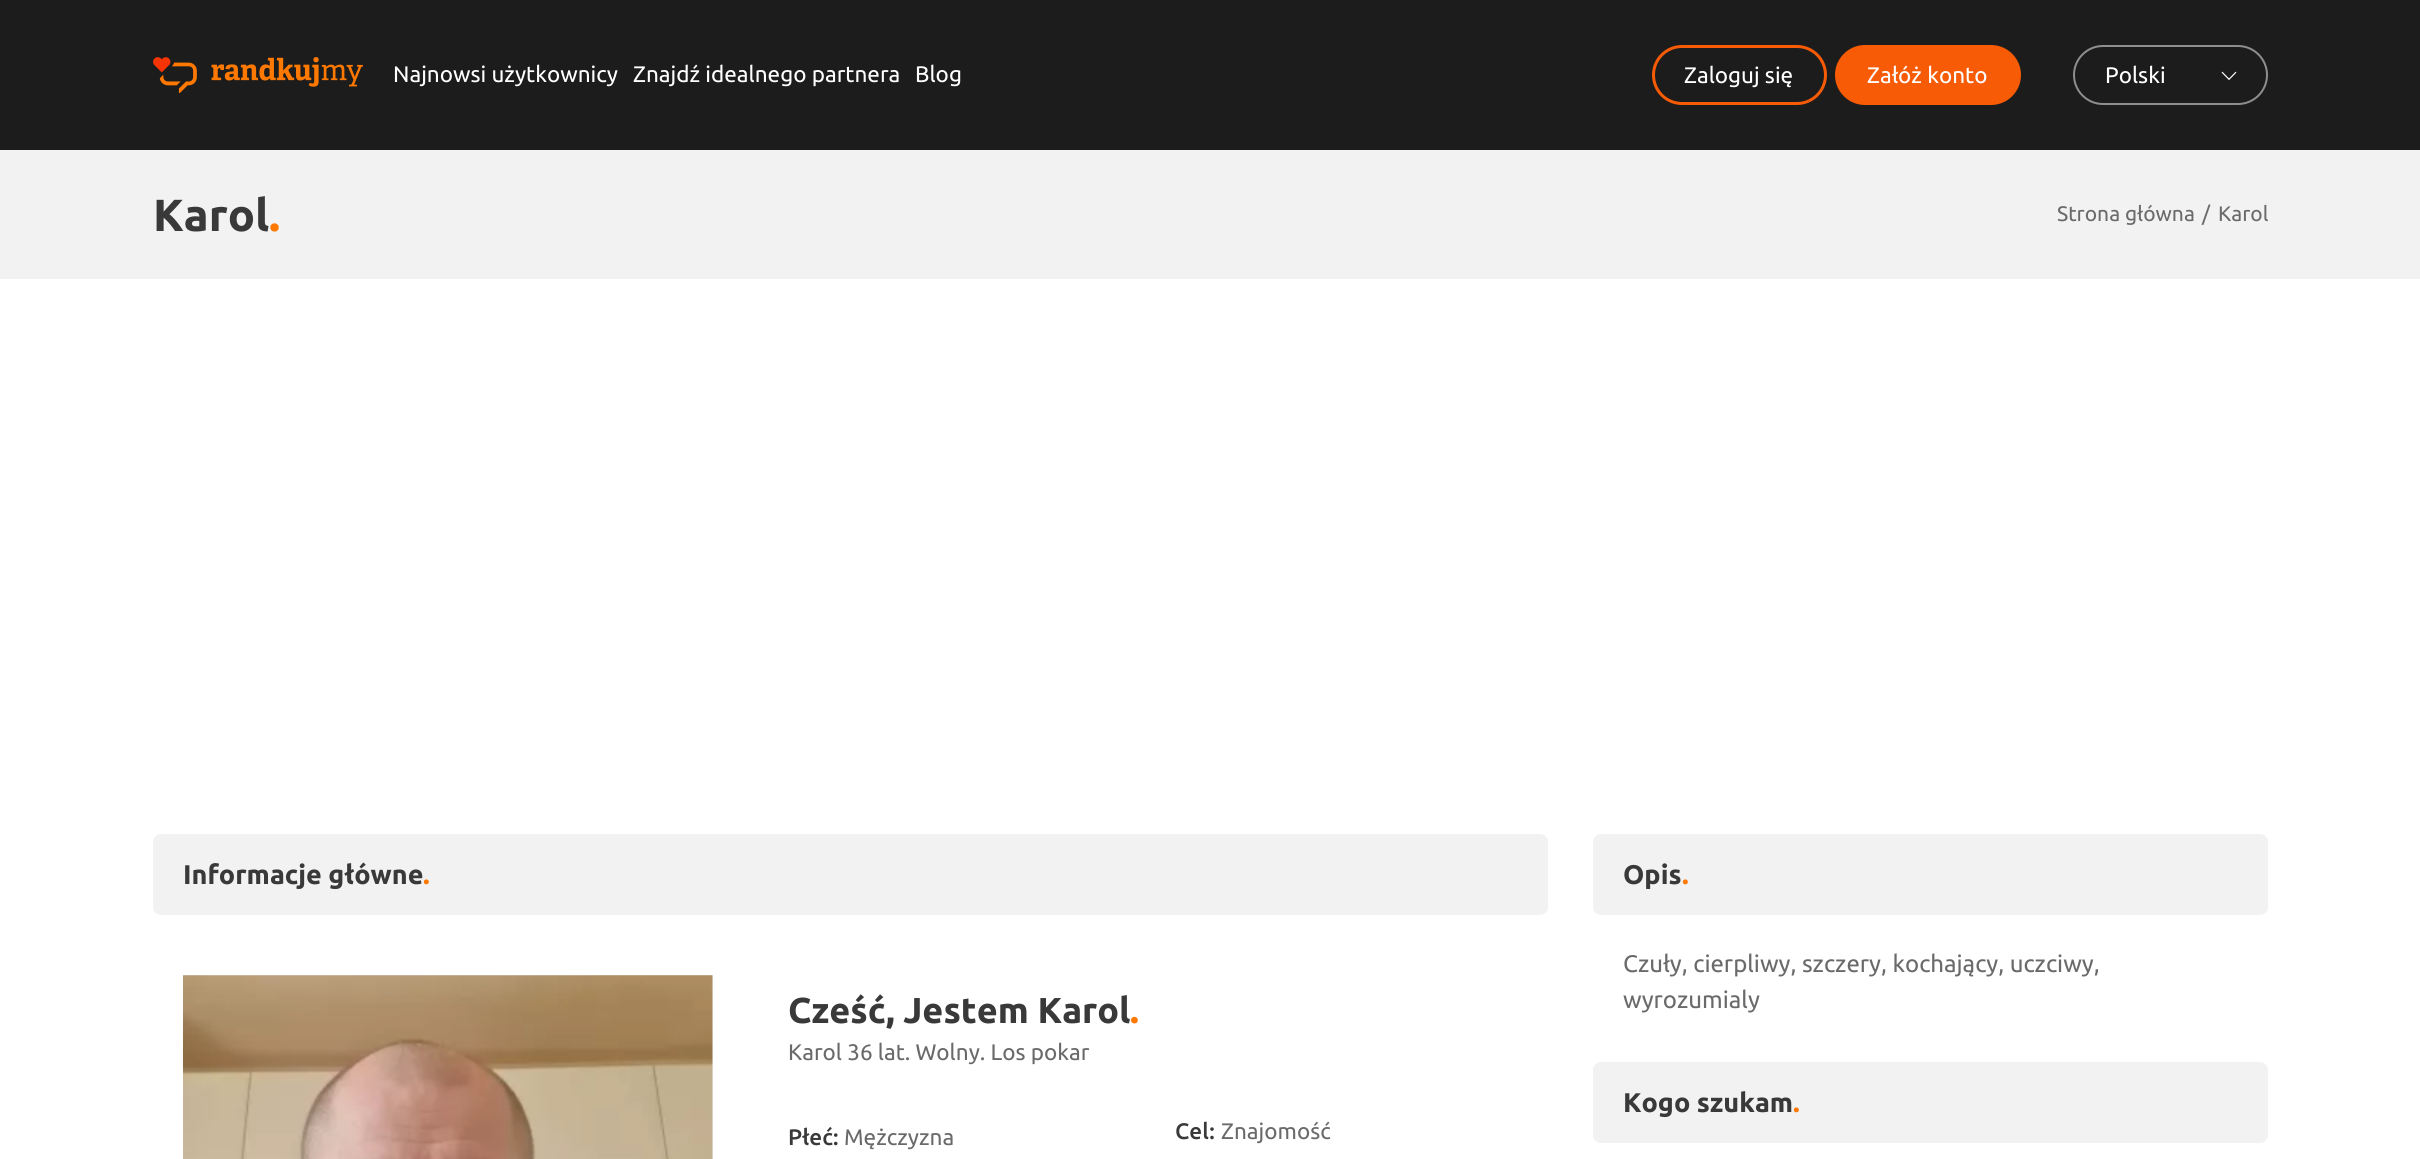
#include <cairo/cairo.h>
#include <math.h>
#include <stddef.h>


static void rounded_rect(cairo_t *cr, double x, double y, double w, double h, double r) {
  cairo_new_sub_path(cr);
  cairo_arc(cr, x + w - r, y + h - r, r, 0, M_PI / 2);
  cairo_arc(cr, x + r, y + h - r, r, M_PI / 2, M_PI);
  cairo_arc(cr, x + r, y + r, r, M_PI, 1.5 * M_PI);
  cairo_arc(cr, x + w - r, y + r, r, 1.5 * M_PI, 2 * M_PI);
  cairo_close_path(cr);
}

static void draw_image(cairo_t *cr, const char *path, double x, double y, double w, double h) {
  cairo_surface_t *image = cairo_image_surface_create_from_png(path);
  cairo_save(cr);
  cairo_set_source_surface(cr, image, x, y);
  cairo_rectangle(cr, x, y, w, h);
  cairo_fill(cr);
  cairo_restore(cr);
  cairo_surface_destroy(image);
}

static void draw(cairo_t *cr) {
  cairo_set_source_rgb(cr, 1, 1, 1);
  cairo_paint(cr);
  cairo_set_source_rgb(cr, 29 / 255.0, 28 / 255.0, 28 / 255.0);
  cairo_rectangle(cr, 0, 0, 2420, 150);
  cairo_fill(cr);
  draw_image(cr, "images/1.png", 153, 57, 210, 36);
  rounded_rect(cr, 1653.5, 46.5, 172, 57, 28.5);
  cairo_set_source_rgb(cr, 247 / 255.0, 91 / 255.0, 6 / 255.0);
  cairo_set_line_width(cr, 3);
  cairo_stroke(cr);
  rounded_rect(cr, 1835, 45, 186, 60, 30);
  cairo_fill(cr);
  rounded_rect(cr, 2074, 46, 193, 58, 29);
  cairo_set_source_rgb(cr, 142 / 255.0, 142 / 255.0, 142 / 255.0);
  cairo_set_line_width(cr, 2);
  cairo_stroke(cr);
  draw_image(cr, "images/2.png", 2221, 71, 16, 9);
  cairo_set_source_rgb(cr, 242 / 255.0, 242 / 255.0, 242 / 255.0);
  cairo_rectangle(cr, 0, 150, 2420, 129);
  cairo_fill(cr);
  rounded_rect(cr, 153, 834, 1395, 81, 8);
  cairo_fill(cr);
  cairo_rectangle(cr, 183, 975, 530, 184);
  cairo_fill(cr);
  draw_image(cr, "images/3.png", 183, 975, 530, 184);
  rounded_rect(cr, 1593, 834, 675, 81, 8);
  cairo_fill(cr);
  rounded_rect(cr, 1593, 1062, 675, 81, 8);
  cairo_fill(cr);
  cairo_select_font_face(cr, "Ubuntu", CAIRO_FONT_SLANT_NORMAL, CAIRO_FONT_WEIGHT_NORMAL);
  cairo_set_font_size(cr, 22.5);
  cairo_set_source_rgb(cr, 1, 1, 1);
  cairo_move_to(cr, 393, 82);
  cairo_show_text(cr, "Najnowsi użytkownicy");
  cairo_move_to(cr, 633, 82);
  cairo_show_text(cr, "Znajdź idealnego partnera");
  cairo_move_to(cr, 915, 82);
  cairo_show_text(cr, "Blog");
  cairo_move_to(cr, 1684, 83);
  cairo_show_text(cr, "Zaloguj się");
  cairo_move_to(cr, 1867, 83);
  cairo_show_text(cr, "Załóż konto");
  cairo_move_to(cr, 2105, 83);
  cairo_show_text(cr, "Polski");
  cairo_select_font_face(cr, "Ubuntu", CAIRO_FONT_SLANT_NORMAL, CAIRO_FONT_WEIGHT_BOLD);
  cairo_set_font_size(cr, 45);
  cairo_set_source_rgb(cr, 57 / 255.0, 57 / 255.0, 57 / 255.0);
  cairo_move_to(cr, 153, 231);
  cairo_show_text(cr, "Karol");
  cairo_set_source_rgb(cr, 1, 120 / 255.0, 0);
  cairo_move_to(cr, 269, 231);
  cairo_show_text(cr, ".");
  cairo_select_font_face(cr, "Ubuntu", CAIRO_FONT_SLANT_NORMAL, CAIRO_FONT_WEIGHT_NORMAL);
  cairo_set_font_size(cr, 21);
  cairo_set_source_rgb(cr, 107 / 255.0, 106 / 255.0, 106 / 255.0);
  cairo_move_to(cr, 2057, 221);
  cairo_show_text(cr, "Strona główna");
  cairo_move_to(cr, 2202, 221);
  cairo_show_text(cr, "/");
  cairo_move_to(cr, 2218, 221);
  cairo_show_text(cr, "Karol");
  cairo_select_font_face(cr, "Ubuntu", CAIRO_FONT_SLANT_NORMAL, CAIRO_FONT_WEIGHT_BOLD);
  cairo_set_font_size(cr, 27);
  cairo_set_source_rgb(cr, 57 / 255.0, 57 / 255.0, 57 / 255.0);
  cairo_move_to(cr, 183, 884);
  cairo_show_text(cr, "Informacje główne");
  cairo_set_source_rgb(cr, 1, 120 / 255.0, 0);
  cairo_move_to(cr, 423, 884);
  cairo_show_text(cr, ".");
  cairo_set_font_size(cr, 36);
  cairo_set_source_rgb(cr, 57 / 255.0, 57 / 255.0, 57 / 255.0);
  cairo_move_to(cr, 788, 1023);
  cairo_show_text(cr, "Cześć, Jestem Karol");
  cairo_set_source_rgb(cr, 1, 120 / 255.0, 0);
  cairo_move_to(cr, 1130, 1023);
  cairo_show_text(cr, ".");
  cairo_select_font_face(cr, "Ubuntu", CAIRO_FONT_SLANT_NORMAL, CAIRO_FONT_WEIGHT_NORMAL);
  cairo_set_font_size(cr, 22.5);
  cairo_set_source_rgb(cr, 107 / 255.0, 106 / 255.0, 106 / 255.0);
  cairo_move_to(cr, 788, 1060);
  cairo_show_text(cr, "Karol 36 lat. Wolny. Los pokar");
  cairo_select_font_face(cr, "Ubuntu Medium", CAIRO_FONT_SLANT_NORMAL, CAIRO_FONT_WEIGHT_NORMAL);
  cairo_set_source_rgb(cr, 57 / 255.0, 57 / 255.0, 57 / 255.0);
  cairo_move_to(cr, 788, 1145);
  cairo_show_text(cr, "Płeć:");
  cairo_select_font_face(cr, "Ubuntu", CAIRO_FONT_SLANT_NORMAL, CAIRO_FONT_WEIGHT_NORMAL);
  cairo_set_source_rgb(cr, 107 / 255.0, 106 / 255.0, 106 / 255.0);
  cairo_move_to(cr, 844, 1145);
  cairo_show_text(cr, "Mężczyzna");
  cairo_select_font_face(cr, "Ubuntu Medium", CAIRO_FONT_SLANT_NORMAL, CAIRO_FONT_WEIGHT_NORMAL);
  cairo_set_source_rgb(cr, 57 / 255.0, 57 / 255.0, 57 / 255.0);
  cairo_move_to(cr, 1175, 1139);
  cairo_show_text(cr, "Cel:");
  cairo_select_font_face(cr, "Ubuntu", CAIRO_FONT_SLANT_NORMAL, CAIRO_FONT_WEIGHT_NORMAL);
  cairo_set_source_rgb(cr, 107 / 255.0, 106 / 255.0, 106 / 255.0);
  cairo_move_to(cr, 1221, 1139);
  cairo_show_text(cr, "Znajomość");
  cairo_select_font_face(cr, "Ubuntu", CAIRO_FONT_SLANT_NORMAL, CAIRO_FONT_WEIGHT_BOLD);
  cairo_set_font_size(cr, 27);
  cairo_set_source_rgb(cr, 57 / 255.0, 57 / 255.0, 57 / 255.0);
  cairo_move_to(cr, 1623, 884);
  cairo_show_text(cr, "Opis");
  cairo_set_source_rgb(cr, 1, 120 / 255.0, 0);
  cairo_move_to(cr, 1682, 884);
  cairo_show_text(cr, ".");
  cairo_select_font_face(cr, "Ubuntu", CAIRO_FONT_SLANT_NORMAL, CAIRO_FONT_WEIGHT_NORMAL);
  cairo_set_font_size(cr, 24);
  cairo_set_source_rgb(cr, 107 / 255.0, 106 / 255.0, 106 / 255.0);
  cairo_move_to(cr, 1623, 972);
  cairo_show_text(cr, "Czuły, cierpliwy, szczery, kochający, uczciwy,");
  cairo_move_to(cr, 1623, 1008);
  cairo_show_text(cr, "wyrozumialy");
  cairo_select_font_face(cr, "Ubuntu", CAIRO_FONT_SLANT_NORMAL, CAIRO_FONT_WEIGHT_BOLD);
  cairo_set_font_size(cr, 27);
  cairo_set_source_rgb(cr, 57 / 255.0, 57 / 255.0, 57 / 255.0);
  cairo_move_to(cr, 1623, 1112);
  cairo_show_text(cr, "Kogo szukam");
  cairo_set_source_rgb(cr, 1, 120 / 255.0, 0);
  cairo_move_to(cr, 1793, 1112);
  cairo_show_text(cr, ".");
}

int main(void) {
  cairo_surface_t *surface = cairo_image_surface_create(CAIRO_FORMAT_RGB24, 2420, 1159);
  cairo_t *cr = cairo_create(surface);
  cairo_font_options_t *options = cairo_font_options_create();
  cairo_font_options_set_hint_metrics(options, CAIRO_HINT_METRICS_OFF);
  cairo_font_options_set_hint_style(options, CAIRO_HINT_STYLE_NONE);
  cairo_set_font_options(cr, options);
  cairo_set_miter_limit(cr, 4);
  draw(cr);
  cairo_surface_write_to_png(surface, "out.png");
  cairo_font_options_destroy(options);
  cairo_destroy(cr);
  cairo_surface_destroy(surface);
  return 0;
}
